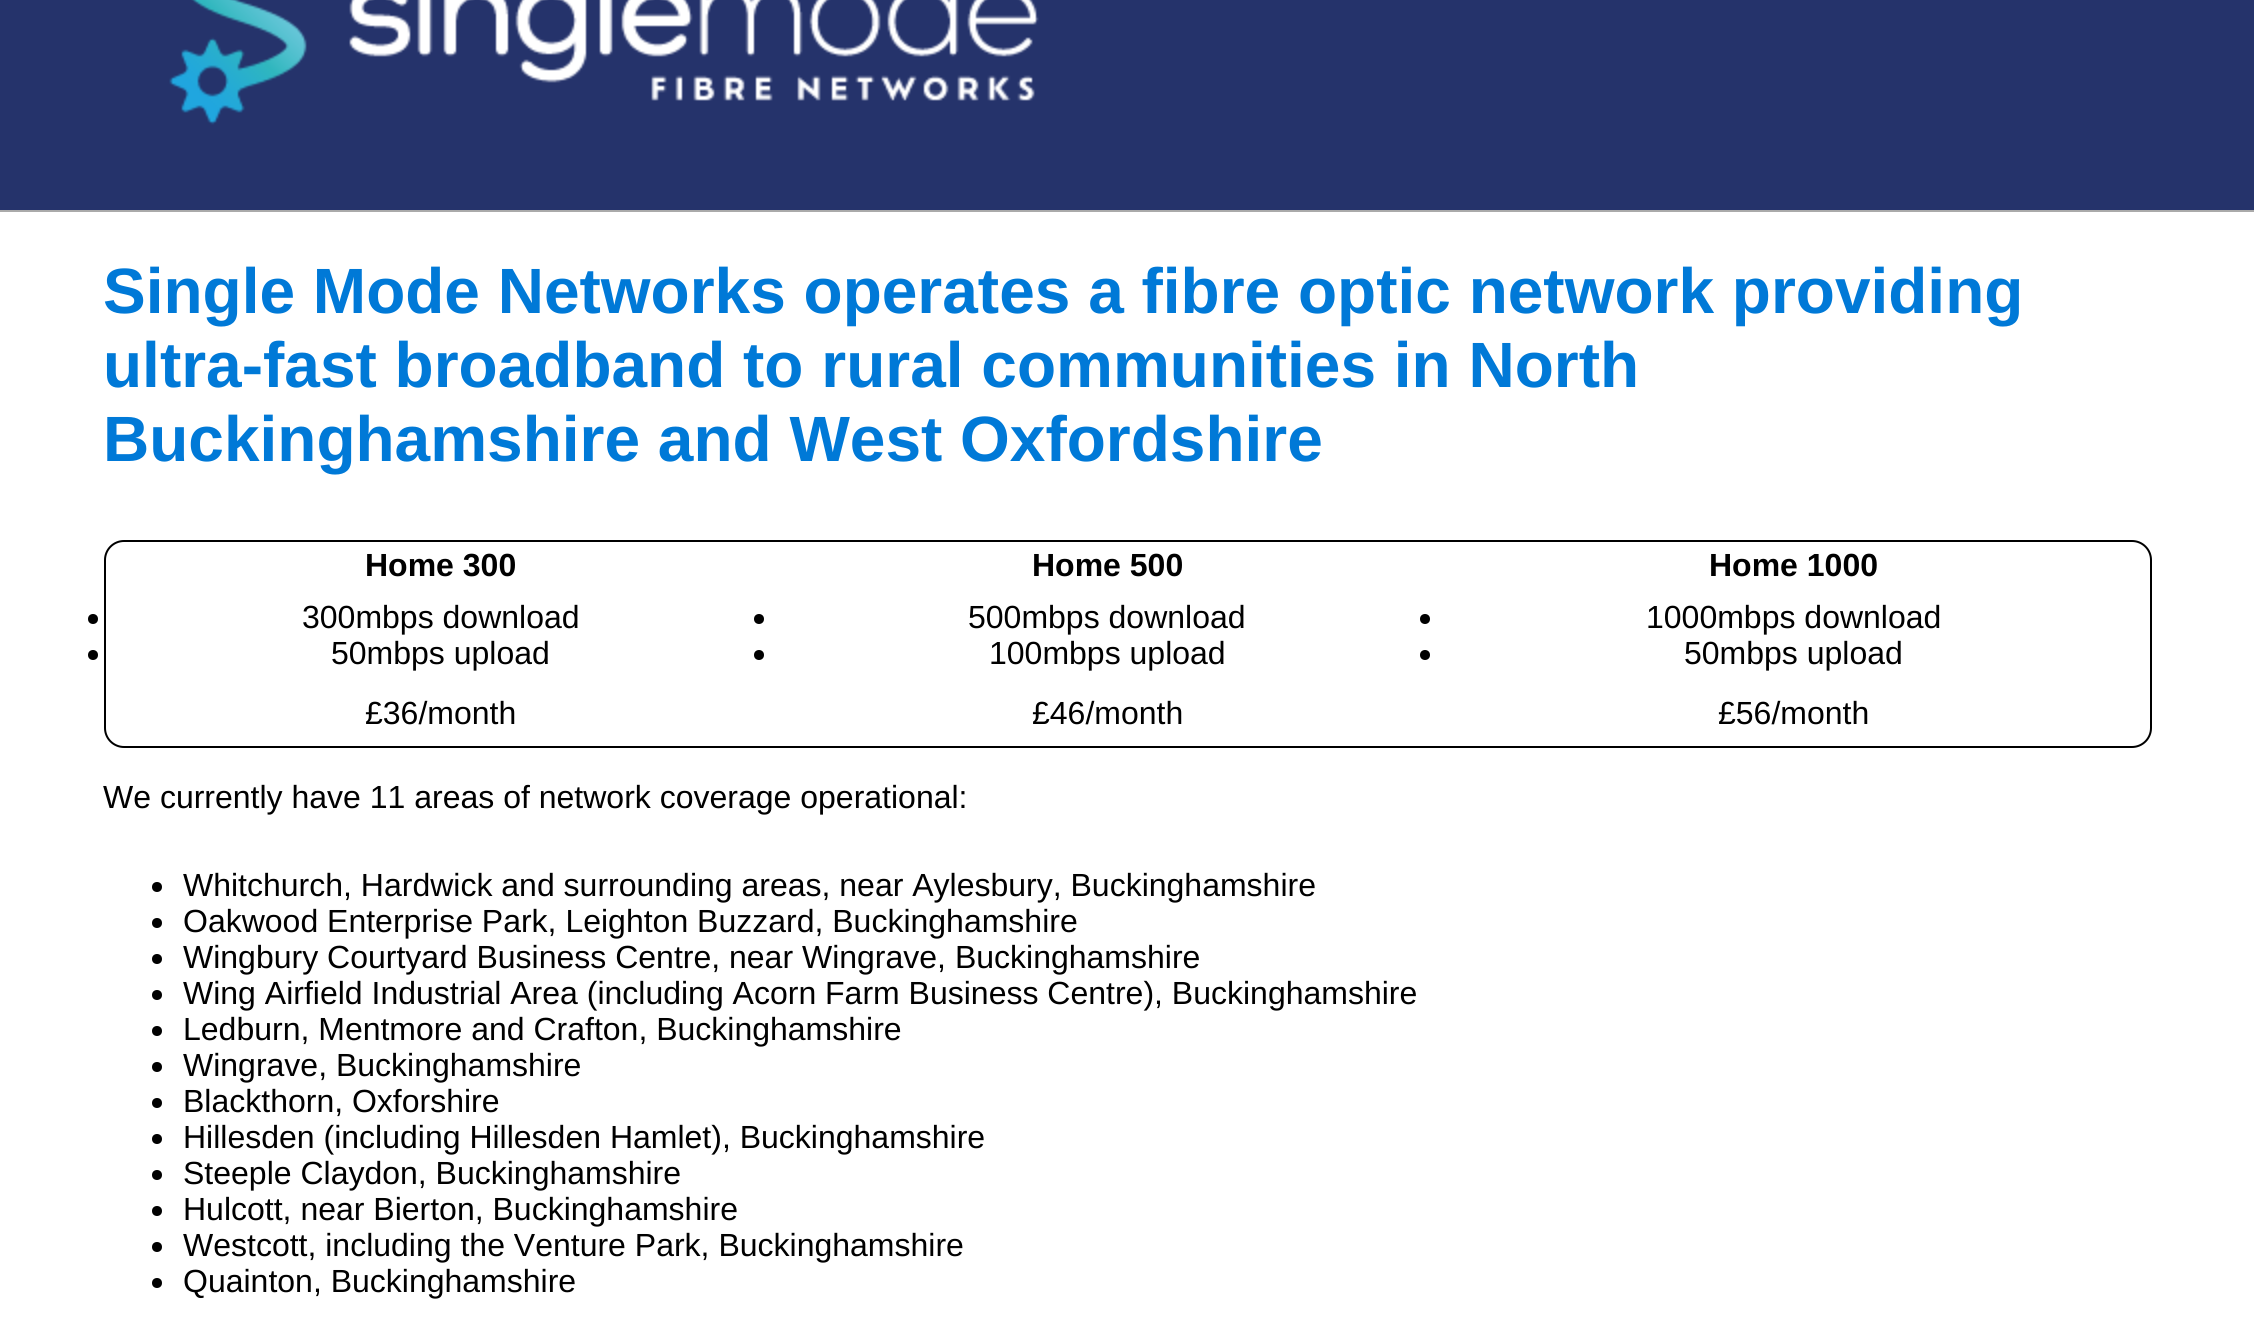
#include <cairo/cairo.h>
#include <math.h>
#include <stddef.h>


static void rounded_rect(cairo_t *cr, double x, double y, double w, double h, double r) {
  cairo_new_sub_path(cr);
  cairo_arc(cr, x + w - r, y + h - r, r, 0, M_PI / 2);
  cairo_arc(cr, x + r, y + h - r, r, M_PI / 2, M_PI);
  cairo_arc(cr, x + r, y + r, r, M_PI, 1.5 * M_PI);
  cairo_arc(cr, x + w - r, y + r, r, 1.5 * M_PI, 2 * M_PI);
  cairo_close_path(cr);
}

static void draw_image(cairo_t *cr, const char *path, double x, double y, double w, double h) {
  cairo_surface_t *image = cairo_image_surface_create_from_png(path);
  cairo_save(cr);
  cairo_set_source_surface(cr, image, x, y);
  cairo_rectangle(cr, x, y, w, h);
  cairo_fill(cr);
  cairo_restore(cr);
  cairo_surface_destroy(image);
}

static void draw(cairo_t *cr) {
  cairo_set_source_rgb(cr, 1, 1, 1);
  cairo_paint(cr);
  cairo_set_source_rgb(cr, 37 / 255.0, 51 / 255.0, 107 / 255.0);
  cairo_rectangle(cr, 0, 0, 2254, 210);
  cairo_fill(cr);
  cairo_set_source_rgb(cr, 170 / 255.0, 170 / 255.0, 170 / 255.0);
  cairo_rectangle(cr, 0, 210, 2254, 2);
  cairo_fill(cr);
  draw_image(cr, "images/1.png", 169, 0, 870, 125);
  rounded_rect(cr, 105, 541, 2046, 206, 19);
  cairo_set_source_rgb(cr, 0, 0, 0);
  cairo_stroke(cr);
  cairo_arc(cr, 93, 619, 5, 0, 2 * M_PI);
  cairo_fill(cr);
  cairo_arc(cr, 93, 655, 5, 0, 2 * M_PI);
  cairo_fill(cr);
  cairo_arc(cr, 759, 619, 5, 0, 2 * M_PI);
  cairo_fill(cr);
  cairo_arc(cr, 759, 655, 5, 0, 2 * M_PI);
  cairo_fill(cr);
  cairo_arc(cr, 1425, 619, 5, 0, 2 * M_PI);
  cairo_fill(cr);
  cairo_arc(cr, 1425, 655, 5, 0, 2 * M_PI);
  cairo_fill(cr);
  cairo_arc(cr, 157, 887, 5, 0, 2 * M_PI);
  cairo_fill(cr);
  cairo_arc(cr, 157, 923, 5, 0, 2 * M_PI);
  cairo_fill(cr);
  cairo_arc(cr, 157, 959, 5, 0, 2 * M_PI);
  cairo_fill(cr);
  cairo_arc(cr, 157, 995, 5, 0, 2 * M_PI);
  cairo_fill(cr);
  cairo_arc(cr, 157, 1031, 5, 0, 2 * M_PI);
  cairo_fill(cr);
  cairo_arc(cr, 157, 1067, 5, 0, 2 * M_PI);
  cairo_fill(cr);
  cairo_arc(cr, 157, 1103, 5, 0, 2 * M_PI);
  cairo_fill(cr);
  cairo_arc(cr, 157, 1139, 5, 0, 2 * M_PI);
  cairo_fill(cr);
  cairo_arc(cr, 157, 1175, 5, 0, 2 * M_PI);
  cairo_fill(cr);
  cairo_arc(cr, 157, 1211, 5, 0, 2 * M_PI);
  cairo_fill(cr);
  cairo_arc(cr, 157, 1247, 5, 0, 2 * M_PI);
  cairo_fill(cr);
  cairo_arc(cr, 157, 1283, 5, 0, 2 * M_PI);
  cairo_fill(cr);
  cairo_select_font_face(cr, "Liberation Sans", CAIRO_FONT_SLANT_NORMAL, CAIRO_FONT_WEIGHT_BOLD);
  cairo_set_font_size(cr, 64);
  cairo_set_source_rgb(cr, 0, 121 / 255.0, 215 / 255.0);
  cairo_move_to(cr, 103, 313);
  cairo_show_text(cr, "Single Mode Networks operates a fibre optic network providing");
  cairo_move_to(cr, 103, 387);
  cairo_show_text(cr, "ultra-fast broadband to rural communities in North");
  cairo_move_to(cr, 103, 461);
  cairo_show_text(cr, "Buckinghamshire and West Oxfordshire");
  cairo_set_font_size(cr, 32);
  cairo_set_source_rgb(cr, 0, 0, 0);
  cairo_move_to(cr, 365, 576);
  cairo_show_text(cr, "Home 300");
  cairo_move_to(cr, 1032, 576);
  cairo_show_text(cr, "Home 500");
  cairo_move_to(cr, 1709, 576);
  cairo_show_text(cr, "Home 1000");
  cairo_select_font_face(cr, "Liberation Sans", CAIRO_FONT_SLANT_NORMAL, CAIRO_FONT_WEIGHT_NORMAL);
  cairo_move_to(cr, 302, 628);
  cairo_show_text(cr, "300mbps download");
  cairo_move_to(cr, 331, 664);
  cairo_show_text(cr, "50mbps upload");
  cairo_move_to(cr, 968, 628);
  cairo_show_text(cr, "500mbps download");
  cairo_move_to(cr, 989, 664);
  cairo_show_text(cr, "100mbps upload");
  cairo_move_to(cr, 1646, 628);
  cairo_show_text(cr, "1000mbps download");
  cairo_move_to(cr, 1684, 664);
  cairo_show_text(cr, "50mbps upload");
  cairo_move_to(cr, 365, 724);
  cairo_show_text(cr, "£36/month");
  cairo_move_to(cr, 1032, 724);
  cairo_show_text(cr, "£46/month");
  cairo_move_to(cr, 1718, 724);
  cairo_show_text(cr, "£56/month");
  cairo_move_to(cr, 103, 808);
  cairo_show_text(cr, "We currently have 11 areas of network coverage operational:");
  cairo_move_to(cr, 183, 896);
  cairo_show_text(cr, "Whitchurch, Hardwick and surrounding areas, near Aylesbury, Buckinghamshire");
  cairo_move_to(cr, 183, 932);
  cairo_show_text(cr, "Oakwood Enterprise Park, Leighton Buzzard, Buckinghamshire");
  cairo_move_to(cr, 183, 968);
  cairo_show_text(cr, "Wingbury Courtyard Business Centre, near Wingrave, Buckinghamshire");
  cairo_move_to(cr, 183, 1004);
  cairo_show_text(cr, "Wing Airfield Industrial Area (including Acorn Farm Business Centre), Buckinghamshire");
  cairo_move_to(cr, 183, 1040);
  cairo_show_text(cr, "Ledburn, Mentmore and Crafton, Buckinghamshire");
  cairo_move_to(cr, 183, 1076);
  cairo_show_text(cr, "Wingrave, Buckinghamshire");
  cairo_move_to(cr, 183, 1112);
  cairo_show_text(cr, "Blackthorn, Oxforshire");
  cairo_move_to(cr, 183, 1148);
  cairo_show_text(cr, "Hillesden (including Hillesden Hamlet), Buckinghamshire");
  cairo_move_to(cr, 183, 1184);
  cairo_show_text(cr, "Steeple Claydon, Buckinghamshire");
  cairo_move_to(cr, 183, 1220);
  cairo_show_text(cr, "Hulcott, near Bierton, Buckinghamshire");
  cairo_move_to(cr, 183, 1256);
  cairo_show_text(cr, "Westcott, including the Venture Park, Buckinghamshire");
  cairo_move_to(cr, 183, 1292);
  cairo_show_text(cr, "Quainton, Buckinghamshire");
}

int main(void) {
  cairo_surface_t *surface = cairo_image_surface_create(CAIRO_FORMAT_RGB24, 2254, 1323);
  cairo_t *cr = cairo_create(surface);
  cairo_font_options_t *options = cairo_font_options_create();
  cairo_font_options_set_hint_metrics(options, CAIRO_HINT_METRICS_OFF);
  cairo_font_options_set_hint_style(options, CAIRO_HINT_STYLE_NONE);
  cairo_set_font_options(cr, options);
  cairo_set_miter_limit(cr, 4);
  draw(cr);
  cairo_surface_write_to_png(surface, "out.png");
  cairo_font_options_destroy(options);
  cairo_destroy(cr);
  cairo_surface_destroy(surface);
  return 0;
}
